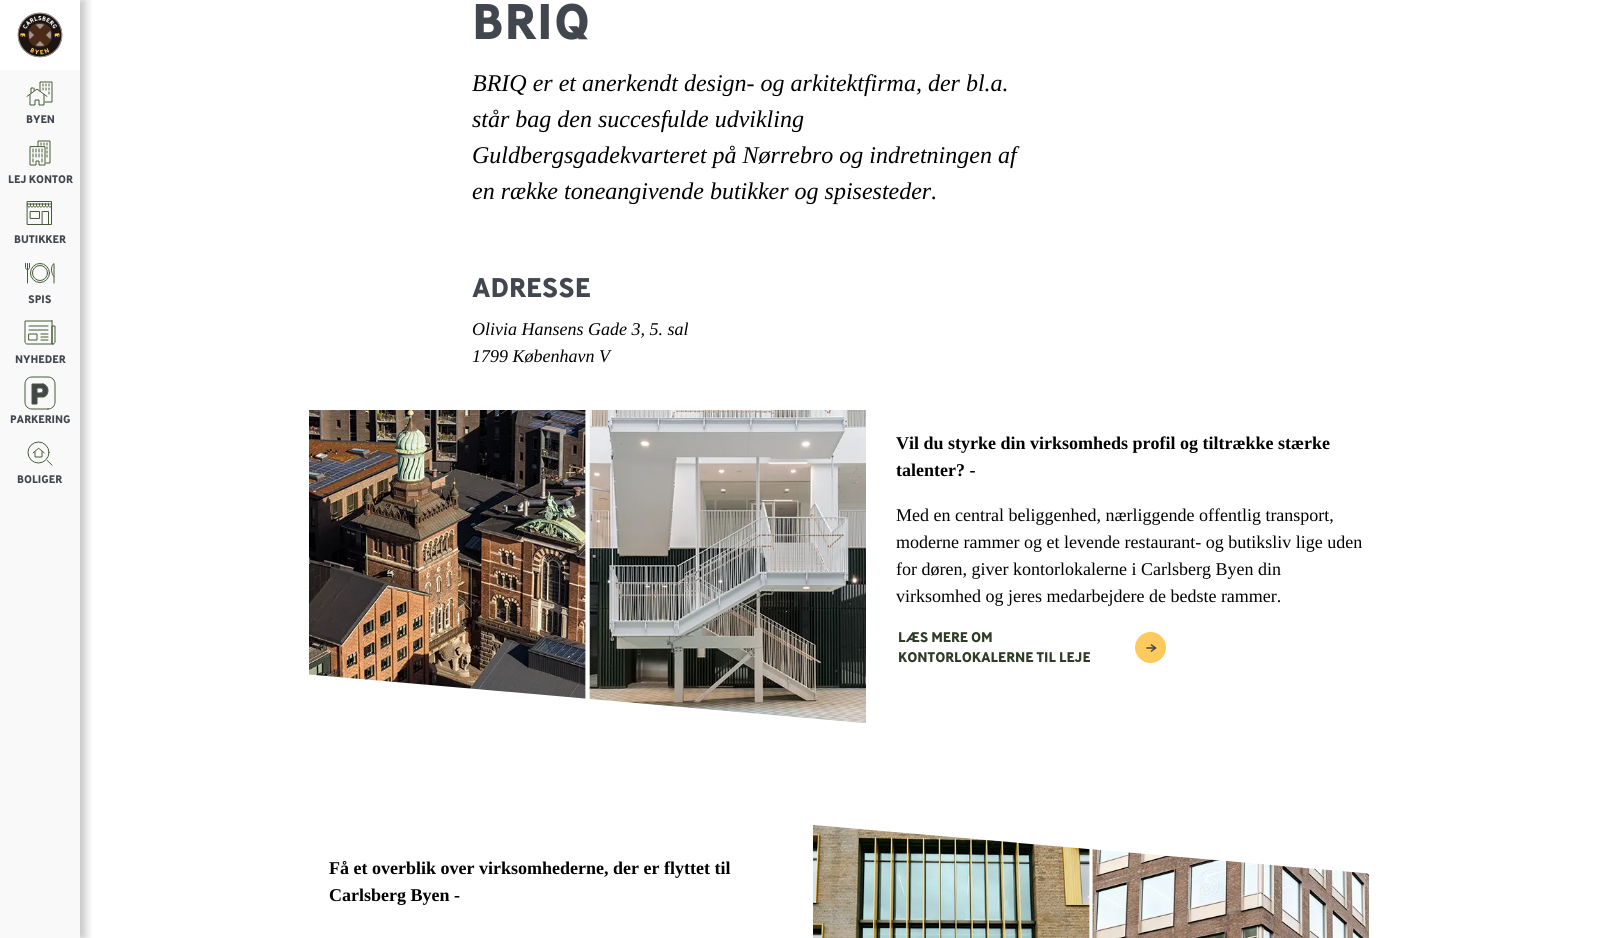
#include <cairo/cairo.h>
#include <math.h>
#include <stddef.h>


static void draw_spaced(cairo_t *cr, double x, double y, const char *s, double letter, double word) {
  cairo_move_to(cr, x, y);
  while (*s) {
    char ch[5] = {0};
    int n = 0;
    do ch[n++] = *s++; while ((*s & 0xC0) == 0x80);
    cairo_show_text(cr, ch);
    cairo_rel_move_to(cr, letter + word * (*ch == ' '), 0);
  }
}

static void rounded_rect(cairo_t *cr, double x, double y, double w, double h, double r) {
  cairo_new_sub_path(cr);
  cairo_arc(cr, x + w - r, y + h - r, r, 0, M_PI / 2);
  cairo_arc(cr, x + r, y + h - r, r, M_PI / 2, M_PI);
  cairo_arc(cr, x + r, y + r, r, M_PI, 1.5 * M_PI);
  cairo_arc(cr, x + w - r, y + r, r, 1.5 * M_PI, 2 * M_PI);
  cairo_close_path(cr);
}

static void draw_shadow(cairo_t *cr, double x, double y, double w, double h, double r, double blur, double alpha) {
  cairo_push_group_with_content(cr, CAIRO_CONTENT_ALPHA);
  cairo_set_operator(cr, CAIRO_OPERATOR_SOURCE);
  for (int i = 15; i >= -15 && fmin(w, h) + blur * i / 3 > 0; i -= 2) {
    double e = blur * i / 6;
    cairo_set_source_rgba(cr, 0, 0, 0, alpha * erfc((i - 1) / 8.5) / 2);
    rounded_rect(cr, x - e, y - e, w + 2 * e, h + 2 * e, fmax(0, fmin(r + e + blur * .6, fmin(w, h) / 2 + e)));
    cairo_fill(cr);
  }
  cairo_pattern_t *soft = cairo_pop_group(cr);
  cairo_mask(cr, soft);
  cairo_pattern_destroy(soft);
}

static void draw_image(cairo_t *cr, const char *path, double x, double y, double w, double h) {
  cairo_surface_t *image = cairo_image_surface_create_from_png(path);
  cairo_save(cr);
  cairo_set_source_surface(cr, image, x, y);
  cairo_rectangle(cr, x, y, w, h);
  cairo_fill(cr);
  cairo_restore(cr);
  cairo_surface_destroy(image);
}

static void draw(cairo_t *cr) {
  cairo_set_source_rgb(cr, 1, 1, 1);
  cairo_paint(cr);
  cairo_set_source_rgb(cr, 249 / 255.0, 249 / 255.0, 249 / 255.0);
  cairo_rectangle(cr, 0, 70, 80, 868);
  cairo_fill(cr);
  cairo_save(cr);
  cairo_rectangle(cr, 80, 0, 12, 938);
  cairo_clip(cr);
  cairo_set_source_rgb(cr, 0, 0, 0);
  draw_shadow(cr, 5, 0, 80, 938, 0, 5, 0.25);
  cairo_restore(cr);
  draw_image(cr, "images/1.png", 17, 12, 46, 46);
  draw_image(cr, "images/2.png", 26, 81, 27, 25);
  draw_image(cr, "images/3.png", 29, 140, 22, 26);
  draw_image(cr, "images/4.png", 26, 201, 26, 24);
  draw_image(cr, "images/5.png", 25, 263, 30, 21);
  draw_image(cr, "images/6.png", 24, 320, 32, 25);
  draw_image(cr, "images/7.png", 24, 376, 32, 34);
  draw_image(cr, "images/8.png", 27, 441, 26, 25);
  draw_image(cr, "images/9.png", 309, 410, 557, 313);
  cairo_set_source_rgb(cr, 1, 202 / 255.0, 92 / 255.0);
  cairo_arc(cr, 1150.5, 647.5, 15.5, 0, 2 * M_PI);
  cairo_fill(cr);
  draw_image(cr, "images/10.png", 1146, 644, 11, 8);
  draw_image(cr, "images/11.png", 813, 825, 556, 113);
  cairo_select_font_face(cr, "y", CAIRO_FONT_SLANT_NORMAL, CAIRO_FONT_WEIGHT_BOLD);
  cairo_set_font_size(cr, 11);
  cairo_set_source_rgb(cr, 66 / 255.0, 71 / 255.0, 79 / 255.0);
  cairo_move_to(cr, 26, 123);
  cairo_show_text(cr, "BYEN");
  cairo_move_to(cr, 8, 183);
  cairo_show_text(cr, "LEJ KONTOR");
  cairo_move_to(cr, 14, 243);
  cairo_show_text(cr, "BUTIKKER");
  cairo_move_to(cr, 28, 303);
  cairo_show_text(cr, "SPIS");
  cairo_move_to(cr, 15, 363);
  cairo_show_text(cr, "NYHEDER");
  cairo_move_to(cr, 10, 423);
  cairo_show_text(cr, "PARKERING");
  cairo_move_to(cr, 17, 483);
  cairo_show_text(cr, "BOLIGER");
  cairo_set_font_size(cr, 50);
  draw_spaced(cr, 472, 39, "BRIQ", 1, 0);
  cairo_select_font_face(cr, "Liberation Serif", CAIRO_FONT_SLANT_ITALIC, CAIRO_FONT_WEIGHT_NORMAL);
  cairo_set_font_size(cr, 24);
  cairo_set_source_rgb(cr, 0, 0, 0);
  cairo_move_to(cr, 472, 91);
  cairo_show_text(cr, "BRIQ er et anerkendt design- og arkitektfirma, der bl.a.");
  cairo_move_to(cr, 472, 127);
  cairo_show_text(cr, "står bag den succesfulde udvikling");
  cairo_move_to(cr, 472, 163);
  cairo_show_text(cr, "Guldbergsgadekvarteret på Nørrebro og indretningen af");
  cairo_move_to(cr, 472, 199);
  cairo_show_text(cr, "en række toneangivende butikker og spisesteder.");
  cairo_select_font_face(cr, "y", CAIRO_FONT_SLANT_NORMAL, CAIRO_FONT_WEIGHT_BOLD);
  cairo_set_font_size(cr, 27);
  cairo_set_source_rgb(cr, 66 / 255.0, 71 / 255.0, 79 / 255.0);
  cairo_move_to(cr, 472, 297);
  cairo_show_text(cr, "ADRESSE");
  cairo_select_font_face(cr, "Liberation Serif", CAIRO_FONT_SLANT_ITALIC, CAIRO_FONT_WEIGHT_NORMAL);
  cairo_set_font_size(cr, 18);
  cairo_set_source_rgb(cr, 0, 0, 0);
  cairo_move_to(cr, 472, 335);
  cairo_show_text(cr, "Olivia Hansens Gade 3, 5. sal");
  cairo_move_to(cr, 472, 362);
  cairo_show_text(cr, "1799 København V");
  cairo_select_font_face(cr, "Liberation Serif", CAIRO_FONT_SLANT_NORMAL, CAIRO_FONT_WEIGHT_BOLD);
  cairo_move_to(cr, 896, 449);
  cairo_show_text(cr, "Vil du styrke din virksomheds profil og tiltrække stærke");
  cairo_move_to(cr, 896, 476);
  cairo_show_text(cr, "talenter? -");
  cairo_select_font_face(cr, "Liberation Serif", CAIRO_FONT_SLANT_NORMAL, CAIRO_FONT_WEIGHT_NORMAL);
  cairo_move_to(cr, 896, 521);
  cairo_show_text(cr, "Med en central beliggenhed, nærliggende offentlig transport,");
  cairo_move_to(cr, 896, 548);
  cairo_show_text(cr, "moderne rammer og et levende restaurant- og butiksliv lige uden");
  cairo_move_to(cr, 896, 575);
  cairo_show_text(cr, "for døren, giver kontorlokalerne i Carlsberg Byen din");
  cairo_move_to(cr, 896, 602);
  cairo_show_text(cr, "virksomhed og jeres medarbejdere de bedste rammer.");
  cairo_select_font_face(cr, "y", CAIRO_FONT_SLANT_NORMAL, CAIRO_FONT_WEIGHT_BOLD);
  cairo_set_font_size(cr, 14);
  cairo_set_source_rgb(cr, 46 / 255.0, 59 / 255.0, 38 / 255.0);
  cairo_move_to(cr, 898, 642);
  cairo_show_text(cr, "LÆS MERE OM");
  cairo_move_to(cr, 898, 662);
  cairo_show_text(cr, "KONTORLOKALERNE TIL LEJE");
  cairo_select_font_face(cr, "Liberation Serif", CAIRO_FONT_SLANT_NORMAL, CAIRO_FONT_WEIGHT_BOLD);
  cairo_set_font_size(cr, 18);
  cairo_set_source_rgb(cr, 0, 0, 0);
  cairo_move_to(cr, 329, 874);
  cairo_show_text(cr, "Få et overblik over virksomhederne, der er flyttet til");
  cairo_move_to(cr, 329, 901);
  cairo_show_text(cr, "Carlsberg Byen -");
}

int main(void) {
  cairo_surface_t *surface = cairo_image_surface_create(CAIRO_FORMAT_RGB24, 1598, 938);
  cairo_t *cr = cairo_create(surface);
  cairo_font_options_t *options = cairo_font_options_create();
  cairo_font_options_set_hint_metrics(options, CAIRO_HINT_METRICS_OFF);
  cairo_font_options_set_hint_style(options, CAIRO_HINT_STYLE_NONE);
  cairo_set_font_options(cr, options);
  cairo_set_miter_limit(cr, 4);
  draw(cr);
  cairo_surface_write_to_png(surface, "out.png");
  cairo_font_options_destroy(options);
  cairo_destroy(cr);
  cairo_surface_destroy(surface);
  return 0;
}
